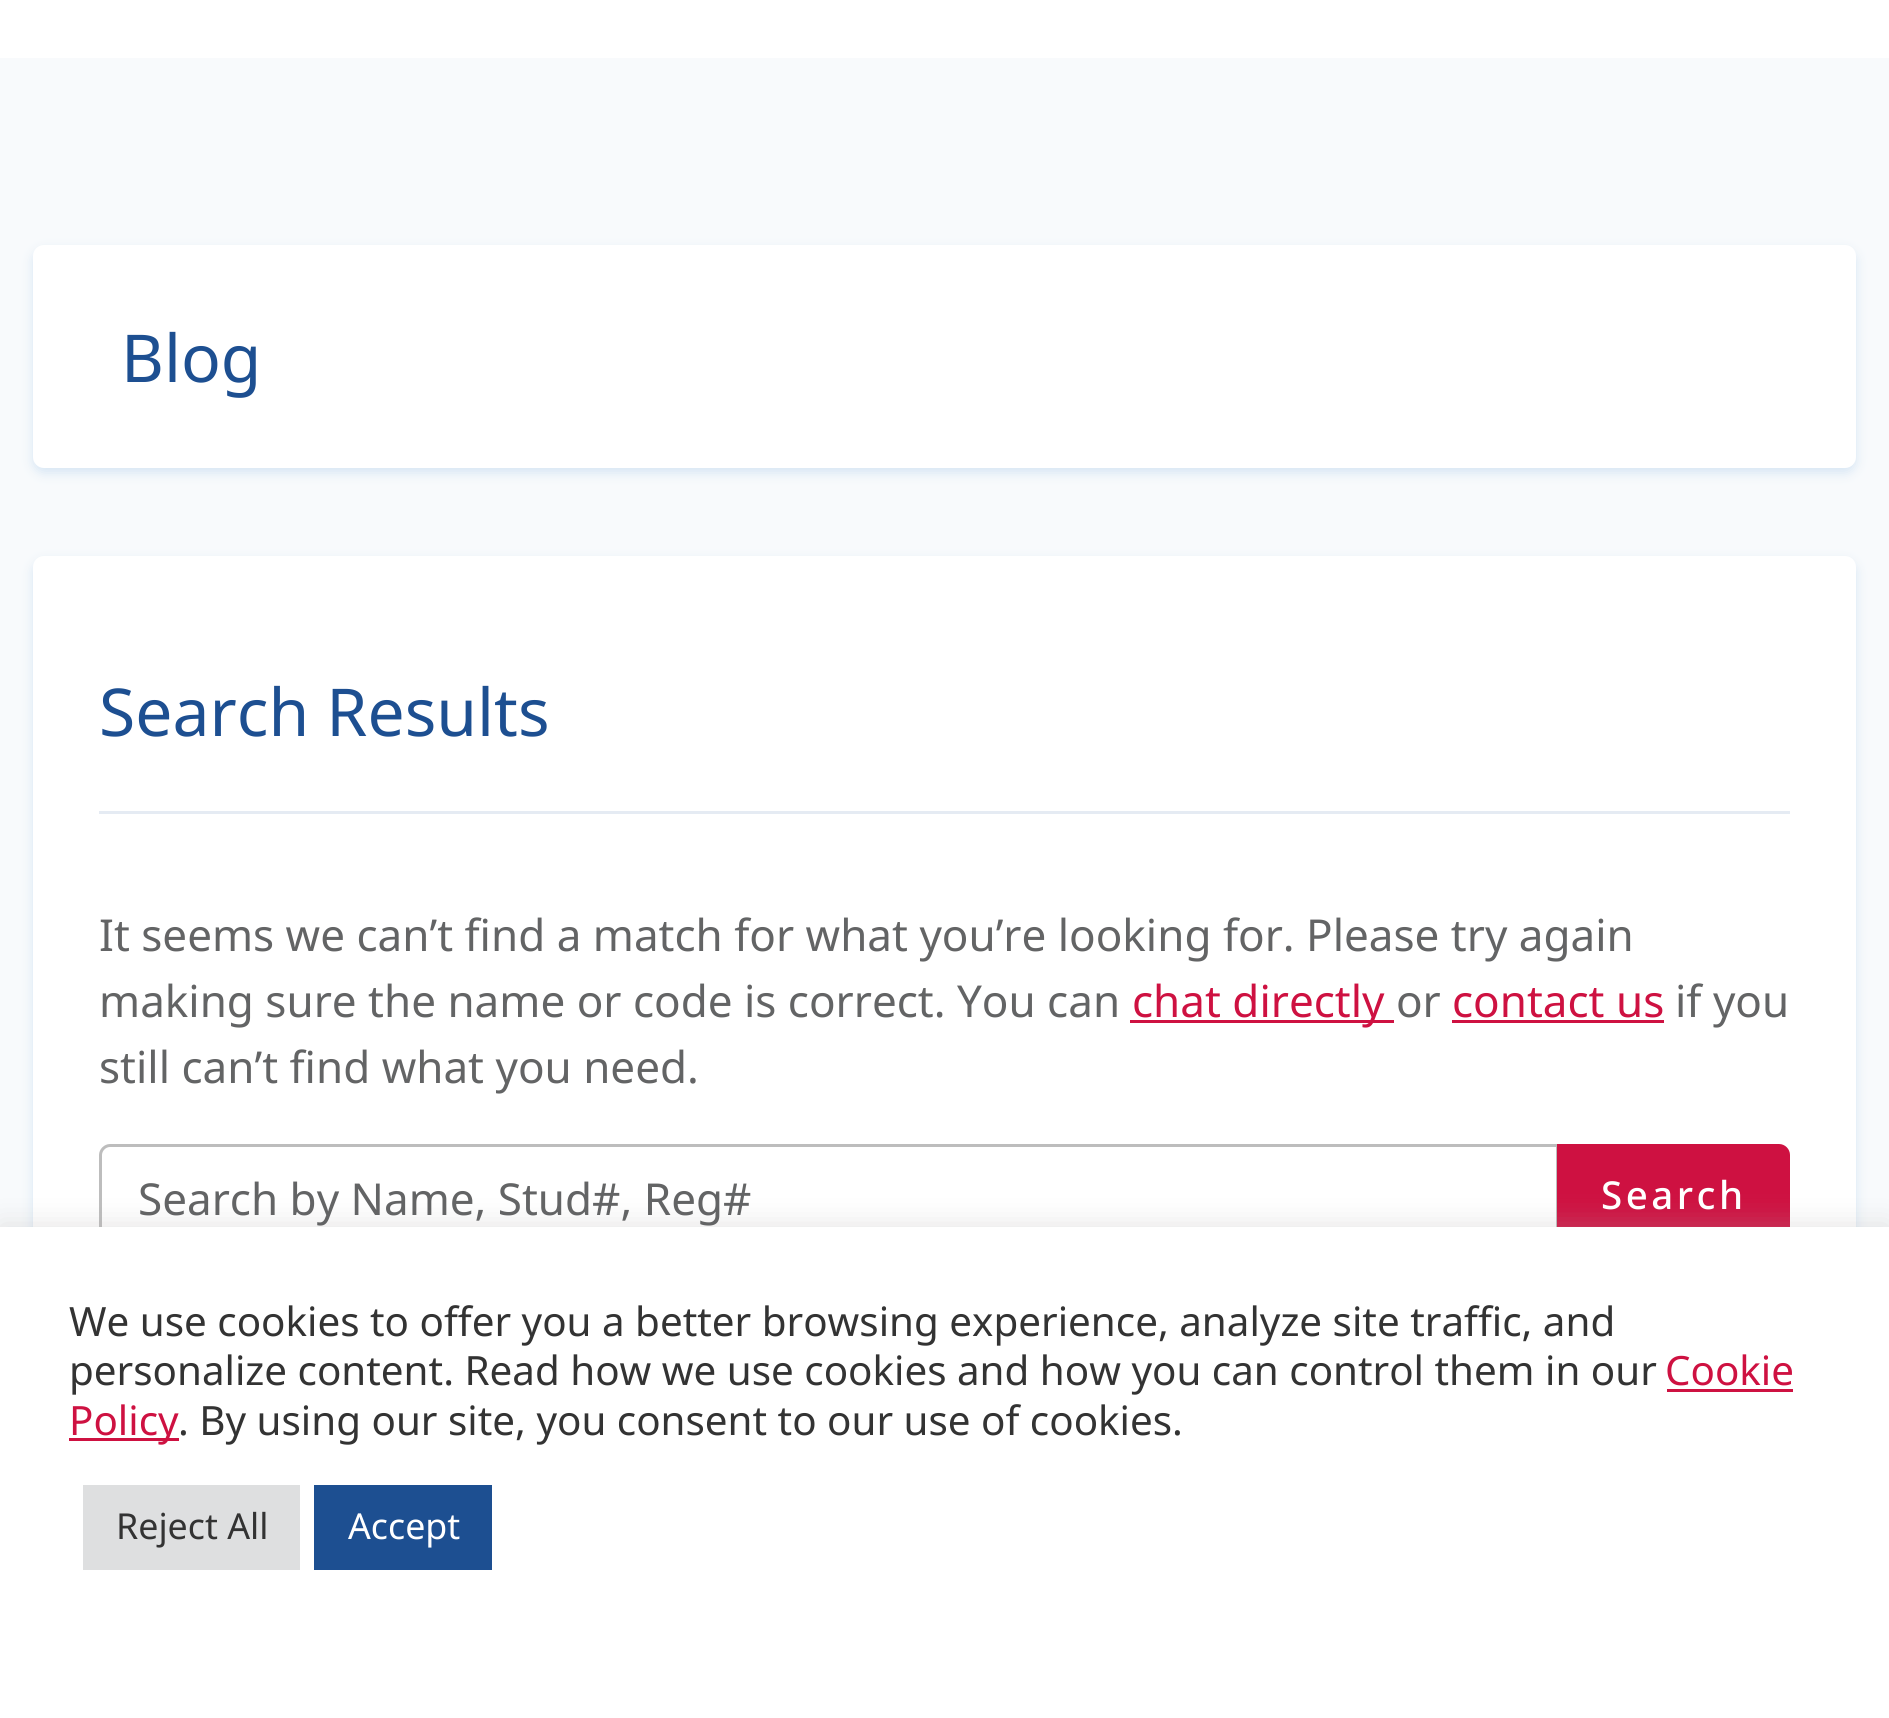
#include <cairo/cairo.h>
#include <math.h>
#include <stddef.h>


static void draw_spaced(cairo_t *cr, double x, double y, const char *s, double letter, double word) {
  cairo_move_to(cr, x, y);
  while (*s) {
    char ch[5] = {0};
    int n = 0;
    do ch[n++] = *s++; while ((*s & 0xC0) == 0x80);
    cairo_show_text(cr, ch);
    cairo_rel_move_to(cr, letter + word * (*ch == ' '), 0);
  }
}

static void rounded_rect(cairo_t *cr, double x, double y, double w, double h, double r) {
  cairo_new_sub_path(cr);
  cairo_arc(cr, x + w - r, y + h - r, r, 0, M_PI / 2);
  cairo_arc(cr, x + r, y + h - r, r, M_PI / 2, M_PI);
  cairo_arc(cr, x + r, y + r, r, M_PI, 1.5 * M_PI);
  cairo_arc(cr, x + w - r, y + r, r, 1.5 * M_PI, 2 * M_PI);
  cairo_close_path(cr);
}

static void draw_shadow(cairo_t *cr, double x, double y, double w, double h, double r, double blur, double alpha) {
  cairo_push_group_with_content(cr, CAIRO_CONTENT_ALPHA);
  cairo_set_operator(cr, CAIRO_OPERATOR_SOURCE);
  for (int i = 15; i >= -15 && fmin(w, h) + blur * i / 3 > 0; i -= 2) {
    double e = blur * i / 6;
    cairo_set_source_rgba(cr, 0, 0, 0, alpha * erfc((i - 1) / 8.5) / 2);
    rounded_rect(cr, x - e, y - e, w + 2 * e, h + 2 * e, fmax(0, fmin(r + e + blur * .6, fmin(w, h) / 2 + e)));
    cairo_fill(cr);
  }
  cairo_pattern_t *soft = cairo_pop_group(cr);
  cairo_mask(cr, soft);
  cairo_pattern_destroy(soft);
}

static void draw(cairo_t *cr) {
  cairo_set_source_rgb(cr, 248 / 255.0, 250 / 255.0, 252 / 255.0);
  cairo_paint(cr);
  cairo_set_source_rgb(cr, 1, 1, 1);
  cairo_rectangle(cr, 0, 0, 1889, 58);
  cairo_fill(cr);
  cairo_set_source_rgb(cr, 215 / 255.0, 230 / 255.0, 244 / 255.0);
  draw_shadow(cr, 33, 250, 1823, 223, 11, 5.5, 1);
  cairo_set_source_rgb(cr, 1, 1, 1);
  rounded_rect(cr, 33, 245, 1823, 223, 11);
  cairo_fill(cr);
  cairo_set_source_rgb(cr, 215 / 255.0, 230 / 255.0, 244 / 255.0);
  draw_shadow(cr, 33, 561, 1823, 754, 11, 5.5, 1);
  cairo_set_source_rgb(cr, 1, 1, 1);
  rounded_rect(cr, 33, 556, 1823, 753, 11);
  cairo_fill(cr);
  cairo_set_source_rgb(cr, 229 / 255.0, 235 / 255.0, 243 / 255.0);
  cairo_rectangle(cr, 99, 811, 1691, 3);
  cairo_fill(cr);
  cairo_set_source_rgb(cr, 206 / 255.0, 17 / 255.0, 65 / 255.0);
  cairo_rectangle(cr, 1130, 1020, 264, 3);
  cairo_fill(cr);
  cairo_rectangle(cr, 1452, 1020, 212, 3);
  cairo_fill(cr);
  cairo_new_path(cr);
  cairo_move_to(cr, 110, 1145.5);
  cairo_line_to(cr, 1557.5, 1145.5);
  cairo_line_to(cr, 1557.5, 1252.5);
  cairo_line_to(cr, 110, 1252.5);
  cairo_curve_to(cr, 105, 1252.5, 100.5, 1248, 100.5, 1243);
  cairo_line_to(cr, 100.5, 1155);
  cairo_curve_to(cr, 100.5, 1150, 105, 1145.5, 110, 1145.5);
  cairo_close_path(cr);
  cairo_set_source_rgb(cr, 189 / 255.0, 189 / 255.0, 189 / 255.0);
  cairo_set_line_width(cr, 3);
  cairo_stroke(cr);
  cairo_set_source_rgb(cr, 206 / 255.0, 17 / 255.0, 65 / 255.0);
  cairo_new_path(cr);
  cairo_move_to(cr, 1557, 1144);
  cairo_line_to(cr, 1779, 1144);
  cairo_curve_to(cr, 1785, 1144, 1790, 1149, 1790, 1155);
  cairo_line_to(cr, 1790, 1243);
  cairo_curve_to(cr, 1790, 1249, 1785, 1254, 1779, 1254);
  cairo_line_to(cr, 1557, 1254);
  cairo_close_path(cr);
  cairo_fill(cr);
  cairo_set_source_rgb(cr, 172 / 255.0, 171 / 255.0, 171 / 255.0);
  draw_shadow(cr, 0, 1224, 1889, 492, 0, 14, 0.3);
  cairo_set_source_rgb(cr, 1, 1, 1);
  cairo_rectangle(cr, 0, 1227, 1889, 491);
  cairo_fill(cr);
  cairo_set_source_rgb(cr, 206 / 255.0, 17 / 255.0, 65 / 255.0);
  cairo_rectangle(cr, 1667, 1389, 126, 3);
  cairo_fill(cr);
  cairo_rectangle(cr, 69, 1438, 110, 3);
  cairo_fill(cr);
  cairo_set_source_rgb(cr, 222 / 255.0, 223 / 255.0, 224 / 255.0);
  cairo_rectangle(cr, 83, 1485, 217, 85);
  cairo_fill(cr);
  cairo_set_source_rgb(cr, 29 / 255.0, 79 / 255.0, 145 / 255.0);
  cairo_rectangle(cr, 314, 1485, 178, 85);
  cairo_fill(cr);
  cairo_select_font_face(cr, "Noto Sans", CAIRO_FONT_SLANT_NORMAL, CAIRO_FONT_WEIGHT_NORMAL);
  cairo_set_font_size(cr, 66);
  cairo_move_to(cr, 121, 382);
  cairo_show_text(cr, "Blog");
  cairo_move_to(cr, 99, 736);
  cairo_show_text(cr, "Search Results");
  cairo_set_font_size(cr, 44);
  cairo_set_source_rgb(cr, 99 / 255.0, 100 / 255.0, 101 / 255.0);
  cairo_move_to(cr, 99, 951);
  cairo_show_text(cr, "It seems we can’t find a match for what you’re looking for. Please try again");
  cairo_move_to(cr, 99, 1017);
  cairo_show_text(cr, "making sure the name or code is correct. You can");
  cairo_set_source_rgb(cr, 206 / 255.0, 17 / 255.0, 65 / 255.0);
  cairo_move_to(cr, 1132, 1017);
  cairo_show_text(cr, "chat directly");
  cairo_set_source_rgb(cr, 99 / 255.0, 100 / 255.0, 101 / 255.0);
  cairo_move_to(cr, 1396, 1017);
  cairo_show_text(cr, "or");
  cairo_set_source_rgb(cr, 206 / 255.0, 17 / 255.0, 65 / 255.0);
  cairo_move_to(cr, 1452, 1017);
  cairo_show_text(cr, "contact us");
  cairo_set_source_rgb(cr, 99 / 255.0, 100 / 255.0, 101 / 255.0);
  cairo_move_to(cr, 1675, 1017);
  cairo_show_text(cr, "if you");
  cairo_move_to(cr, 99, 1083);
  cairo_show_text(cr, "still can’t find what you need.");
  cairo_move_to(cr, 138, 1215);
  cairo_show_text(cr, "Search by Name, Stud#, Reg#");
  cairo_select_font_face(cr, "Noto Sans Medium", CAIRO_FONT_SLANT_NORMAL, CAIRO_FONT_WEIGHT_NORMAL);
  cairo_set_font_size(cr, 38.5);
  cairo_set_source_rgb(cr, 1, 1, 1);
  draw_spaced(cr, 1601, 1209, "Search", 3.5, 0);
  cairo_select_font_face(cr, "Noto Sans", CAIRO_FONT_SLANT_NORMAL, CAIRO_FONT_WEIGHT_NORMAL);
  cairo_set_font_size(cr, 40.35);
  cairo_set_source_rgb(cr, 51 / 255.0, 51 / 255.0, 51 / 255.0);
  cairo_move_to(cr, 69, 1336);
  cairo_show_text(cr, "We use cookies to offer you a better browsing experience, analyze site traffic, and");
  cairo_move_to(cr, 69, 1385);
  cairo_show_text(cr, "personalize content. Read how we use cookies and how you can control them in our");
  cairo_set_source_rgb(cr, 206 / 255.0, 17 / 255.0, 65 / 255.0);
  cairo_move_to(cr, 1665, 1385);
  cairo_show_text(cr, "Cookie");
  cairo_move_to(cr, 69, 1435);
  cairo_show_text(cr, "Policy");
  cairo_set_source_rgb(cr, 51 / 255.0, 51 / 255.0, 51 / 255.0);
  cairo_move_to(cr, 178, 1435);
  cairo_show_text(cr, ". By using our site, you consent to our use of cookies.");
  cairo_set_font_size(cr, 35.75);
  cairo_move_to(cr, 116, 1539);
  cairo_show_text(cr, "Reject All");
  cairo_set_source_rgb(cr, 1, 1, 1);
  cairo_move_to(cr, 348, 1539);
  cairo_show_text(cr, "Accept");
}

int main(void) {
  cairo_surface_t *surface = cairo_image_surface_create(CAIRO_FORMAT_RGB24, 1889, 1718);
  cairo_t *cr = cairo_create(surface);
  cairo_font_options_t *options = cairo_font_options_create();
  cairo_font_options_set_hint_metrics(options, CAIRO_HINT_METRICS_OFF);
  cairo_font_options_set_hint_style(options, CAIRO_HINT_STYLE_NONE);
  cairo_set_font_options(cr, options);
  cairo_set_miter_limit(cr, 4);
  draw(cr);
  cairo_surface_write_to_png(surface, "out.png");
  cairo_font_options_destroy(options);
  cairo_destroy(cr);
  cairo_surface_destroy(surface);
  return 0;
}
